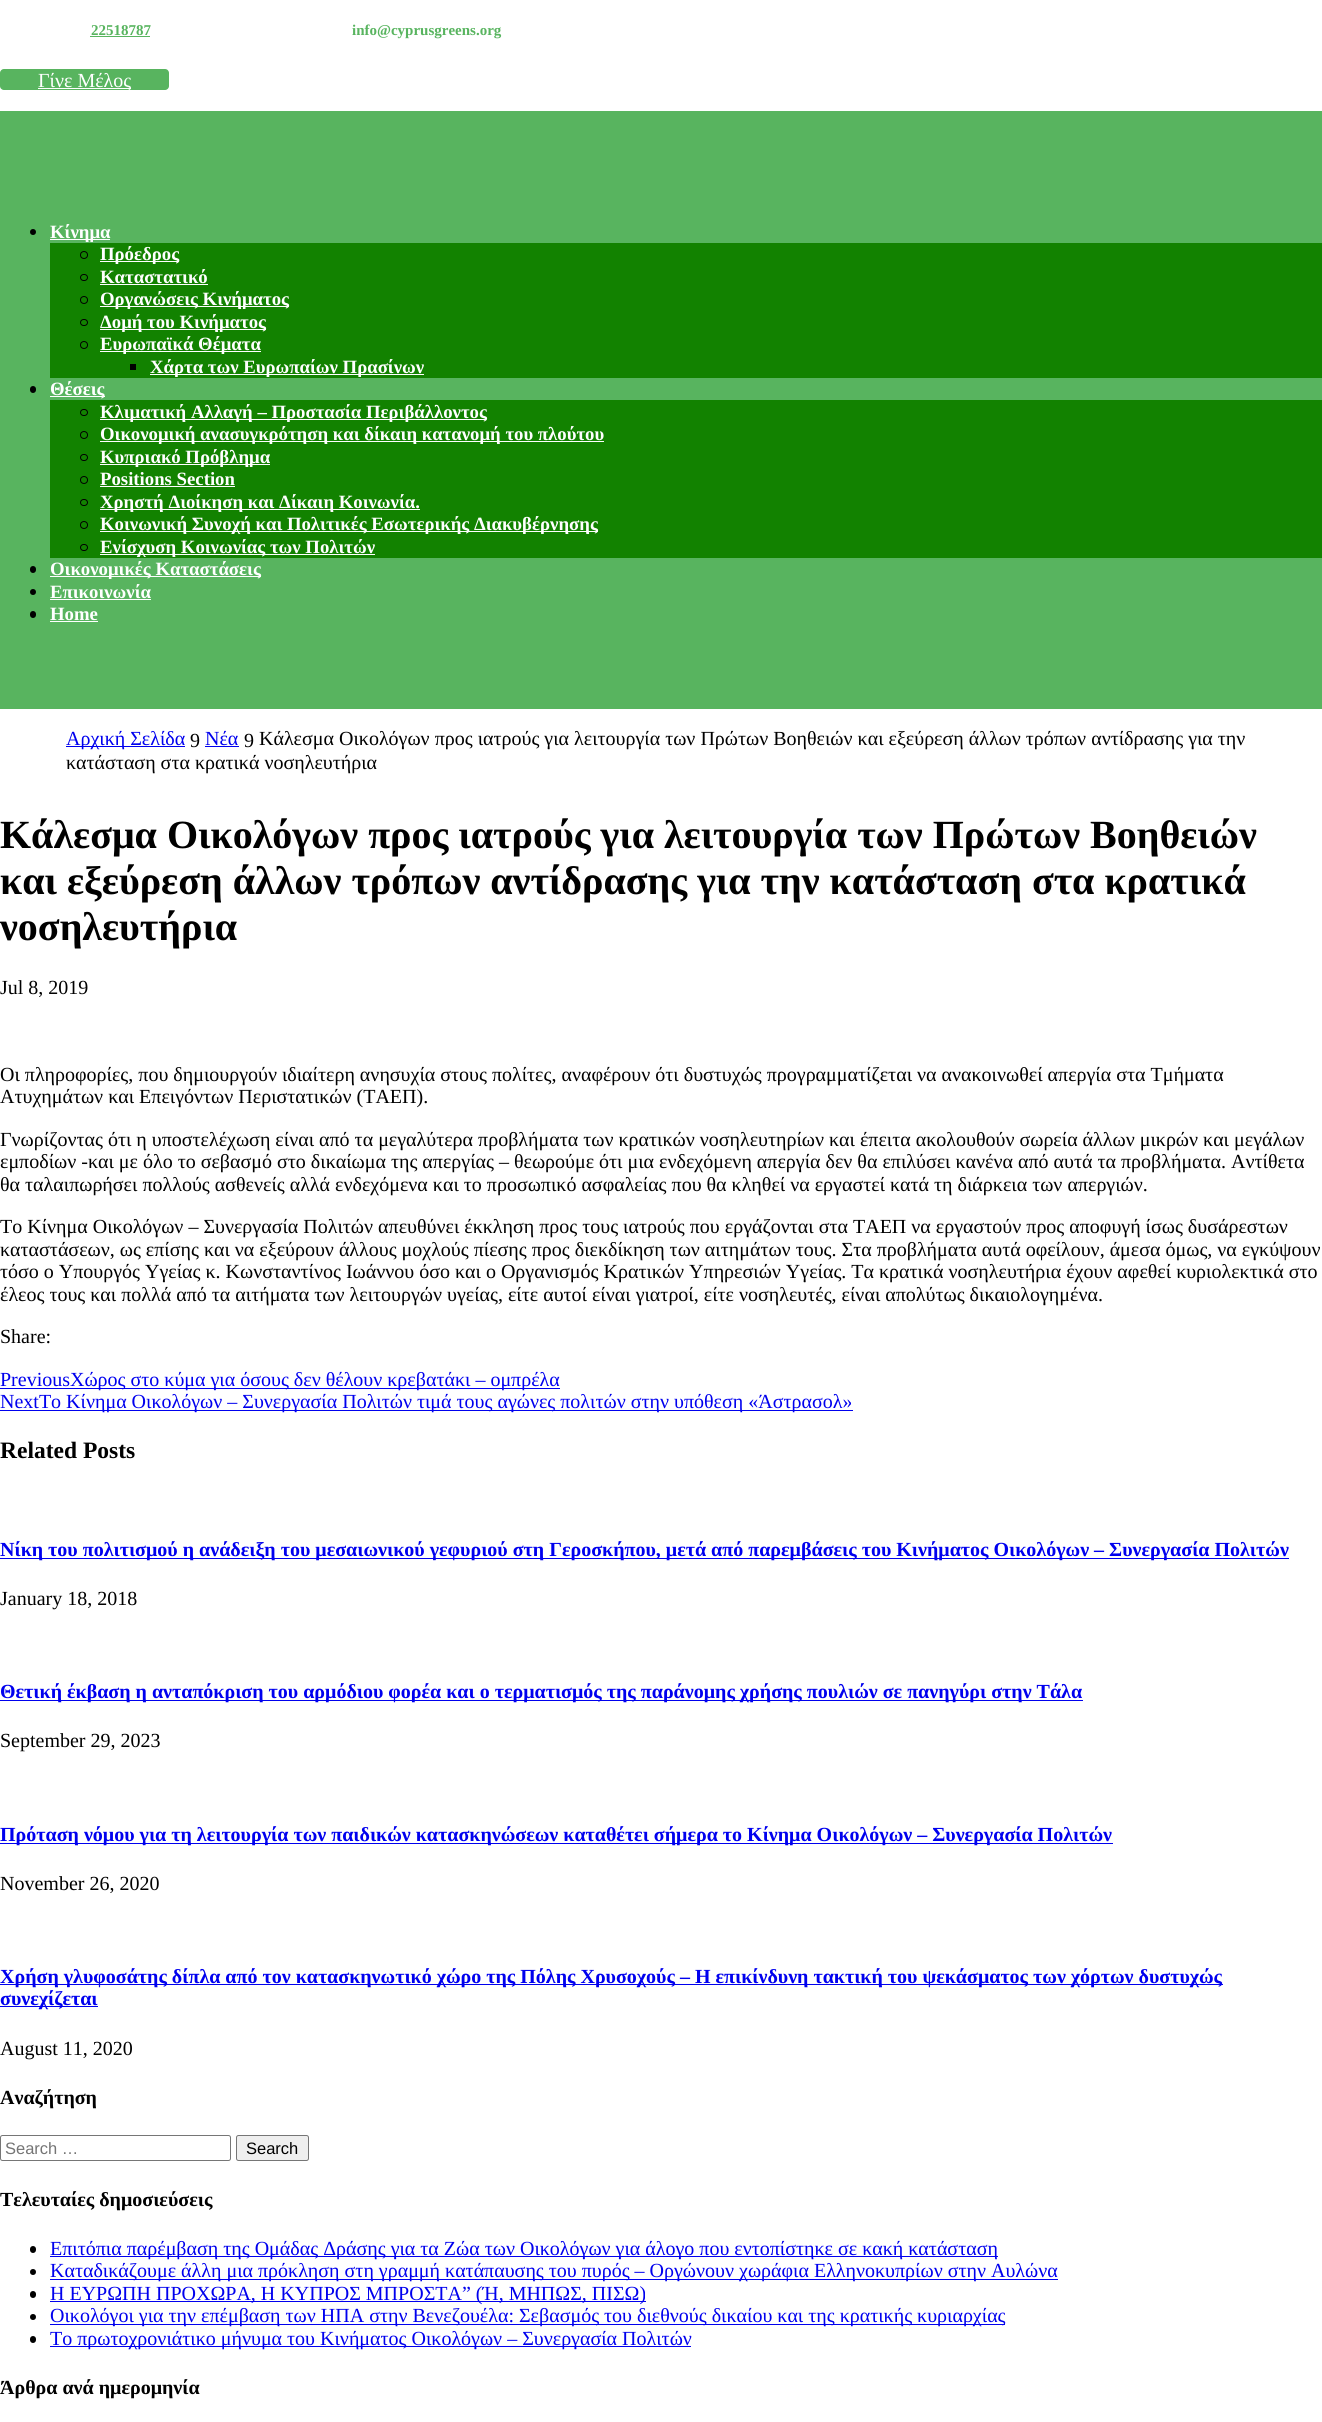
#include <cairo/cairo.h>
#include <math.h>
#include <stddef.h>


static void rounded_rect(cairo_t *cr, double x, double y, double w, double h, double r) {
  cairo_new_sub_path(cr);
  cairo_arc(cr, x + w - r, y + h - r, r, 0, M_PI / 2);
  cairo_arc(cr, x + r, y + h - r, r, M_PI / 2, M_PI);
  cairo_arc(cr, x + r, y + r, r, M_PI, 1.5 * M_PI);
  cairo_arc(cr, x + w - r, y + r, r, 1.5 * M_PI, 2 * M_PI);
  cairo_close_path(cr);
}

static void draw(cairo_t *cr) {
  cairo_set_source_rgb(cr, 1, 1, 1);
  cairo_paint(cr);
  cairo_set_source_rgb(cr, 88 / 255.0, 180 / 255.0, 95 / 255.0);
  cairo_rectangle(cr, 90, 36, 60, 1);
  cairo_fill(cr);
  rounded_rect(cr, 0, 69, 169, 21, 4);
  cairo_fill(cr);
  cairo_set_source_rgb(cr, 1, 1, 1);
  cairo_rectangle(cr, 38, 88, 93, 1);
  cairo_fill(cr);
  cairo_set_source_rgb(cr, 88 / 255.0, 180 / 255.0, 95 / 255.0);
  cairo_rectangle(cr, 0, 111, 1322, 598);
  cairo_fill(cr);
  cairo_set_source_rgb(cr, 0, 0, 0);
  cairo_arc(cr, 33, 232, 3, 0, 2 * M_PI);
  cairo_fill(cr);
  cairo_set_source_rgb(cr, 1, 1, 1);
  cairo_rectangle(cr, 50, 239, 60, 1);
  cairo_fill(cr);
  cairo_set_source_rgb(cr, 18 / 255.0, 130 / 255.0, 0);
  cairo_rectangle(cr, 50, 243, 1272, 135);
  cairo_fill(cr);
  cairo_arc(cr, 84, 255, 3.5, 0, 2 * M_PI);
  cairo_set_source_rgb(cr, 0, 0, 0);
  cairo_set_line_width(cr, 1);
  cairo_stroke(cr);
  cairo_set_source_rgb(cr, 1, 1, 1);
  cairo_rectangle(cr, 100, 261, 79, 1);
  cairo_fill(cr);
  rounded_rect(cr, 80.5, 274.5, 7, 6, 3);
  cairo_set_source_rgb(cr, 0, 0, 0);
  cairo_stroke(cr);
  cairo_set_source_rgb(cr, 1, 1, 1);
  cairo_rectangle(cr, 100, 284, 108, 1);
  cairo_fill(cr);
  cairo_arc(cr, 84, 300, 3.5, 0, 2 * M_PI);
  cairo_set_source_rgb(cr, 0, 0, 0);
  cairo_stroke(cr);
  cairo_set_source_rgb(cr, 1, 1, 1);
  cairo_rectangle(cr, 100, 306, 189, 1);
  cairo_fill(cr);
  rounded_rect(cr, 80.5, 319.5, 7, 6, 3);
  cairo_set_source_rgb(cr, 0, 0, 0);
  cairo_stroke(cr);
  cairo_set_source_rgb(cr, 1, 1, 1);
  cairo_rectangle(cr, 100, 329, 166, 1);
  cairo_fill(cr);
  cairo_arc(cr, 84, 345, 3.5, 0, 2 * M_PI);
  cairo_set_source_rgb(cr, 0, 0, 0);
  cairo_stroke(cr);
  cairo_set_source_rgb(cr, 1, 1, 1);
  cairo_rectangle(cr, 100, 351, 161, 1);
  cairo_fill(cr);
  cairo_set_source_rgb(cr, 0, 0, 0);
  cairo_rectangle(cr, 130, 364, 6, 6);
  cairo_fill(cr);
  cairo_set_source_rgb(cr, 1, 1, 1);
  cairo_rectangle(cr, 150, 374, 274, 1);
  cairo_fill(cr);
  cairo_set_source_rgb(cr, 0, 0, 0);
  rounded_rect(cr, 30, 386, 6, 7, 3);
  cairo_fill(cr);
  cairo_set_source_rgb(cr, 1, 1, 1);
  cairo_rectangle(cr, 50, 396, 55, 1);
  cairo_fill(cr);
  cairo_set_source_rgb(cr, 18 / 255.0, 130 / 255.0, 0);
  cairo_rectangle(cr, 50, 400, 1272, 158);
  cairo_fill(cr);
  rounded_rect(cr, 80.5, 409.5, 7, 6, 3);
  cairo_set_source_rgb(cr, 0, 0, 0);
  cairo_stroke(cr);
  cairo_set_source_rgb(cr, 1, 1, 1);
  cairo_rectangle(cr, 100, 419, 386, 1);
  cairo_fill(cr);
  cairo_arc(cr, 84, 435, 3.5, 0, 2 * M_PI);
  cairo_set_source_rgb(cr, 0, 0, 0);
  cairo_stroke(cr);
  cairo_set_source_rgb(cr, 1, 1, 1);
  cairo_rectangle(cr, 100, 441, 504, 1);
  cairo_fill(cr);
  rounded_rect(cr, 80.5, 454.5, 7, 6, 3);
  cairo_set_source_rgb(cr, 0, 0, 0);
  cairo_stroke(cr);
  cairo_set_source_rgb(cr, 1, 1, 1);
  cairo_rectangle(cr, 100, 464, 170, 1);
  cairo_fill(cr);
  cairo_arc(cr, 84, 480, 3.5, 0, 2 * M_PI);
  cairo_set_source_rgb(cr, 0, 0, 0);
  cairo_stroke(cr);
  cairo_set_source_rgb(cr, 1, 1, 1);
  cairo_rectangle(cr, 100, 486, 135, 1);
  cairo_fill(cr);
  rounded_rect(cr, 80.5, 499.5, 7, 6, 3);
  cairo_set_source_rgb(cr, 0, 0, 0);
  cairo_stroke(cr);
  cairo_set_source_rgb(cr, 1, 1, 1);
  cairo_rectangle(cr, 100, 509, 320, 1);
  cairo_fill(cr);
  cairo_arc(cr, 84, 525, 3.5, 0, 2 * M_PI);
  cairo_set_source_rgb(cr, 0, 0, 0);
  cairo_stroke(cr);
  cairo_set_source_rgb(cr, 1, 1, 1);
  cairo_rectangle(cr, 100, 531, 498, 1);
  cairo_fill(cr);
  rounded_rect(cr, 80.5, 544.5, 7, 6, 3);
  cairo_set_source_rgb(cr, 0, 0, 0);
  cairo_stroke(cr);
  cairo_set_source_rgb(cr, 1, 1, 1);
  cairo_rectangle(cr, 100, 554, 275, 1);
  cairo_fill(cr);
  cairo_set_source_rgb(cr, 0, 0, 0);
  rounded_rect(cr, 30, 566, 6, 7, 3);
  cairo_fill(cr);
  cairo_set_source_rgb(cr, 1, 1, 1);
  cairo_rectangle(cr, 50, 576, 211, 1);
  cairo_fill(cr);
  cairo_set_source_rgb(cr, 0, 0, 0);
  cairo_arc(cr, 33, 592, 3, 0, 2 * M_PI);
  cairo_fill(cr);
  cairo_set_source_rgb(cr, 1, 1, 1);
  cairo_rectangle(cr, 50, 599, 101, 1);
  cairo_fill(cr);
  cairo_set_source_rgb(cr, 0, 0, 0);
  rounded_rect(cr, 30, 611, 6, 7, 3);
  cairo_fill(cr);
  cairo_set_source_rgb(cr, 1, 1, 1);
  cairo_rectangle(cr, 50, 621, 48, 1);
  cairo_fill(cr);
  cairo_set_source_rgb(cr, 0, 0, 238 / 255.0);
  cairo_rectangle(cr, 66, 746, 119, 1);
  cairo_fill(cr);
  cairo_rectangle(cr, 205, 746, 34, 1);
  cairo_fill(cr);
  cairo_rectangle(cr, 0, 1388, 560, 1);
  cairo_fill(cr);
  cairo_rectangle(cr, 0, 1410, 853, 1);
  cairo_fill(cr);
  cairo_rectangle(cr, 0, 1558, 1289, 1);
  cairo_fill(cr);
  cairo_rectangle(cr, 0, 1700, 1083, 1);
  cairo_fill(cr);
  cairo_rectangle(cr, 0, 1843, 1113, 1);
  cairo_fill(cr);
  cairo_rectangle(cr, 0, 1984, 1223, 1);
  cairo_fill(cr);
  cairo_rectangle(cr, 0, 2006, 98, 1);
  cairo_fill(cr);
  rounded_rect(cr, 0.5, 2135.5, 230, 25, 2);
  cairo_set_source_rgb(cr, 118 / 255.0, 118 / 255.0, 118 / 255.0);
  cairo_stroke(cr);
  cairo_set_source_rgb(cr, 239 / 255.0, 239 / 255.0, 239 / 255.0);
  rounded_rect(cr, 236.5, 2135.5, 72, 25, 2);
  cairo_fill_preserve(cr);
  cairo_set_source_rgb(cr, 118 / 255.0, 118 / 255.0, 118 / 255.0);
  cairo_stroke(cr);
  cairo_set_source_rgb(cr, 0, 0, 0);
  rounded_rect(cr, 30, 2246, 6, 7, 3);
  cairo_fill(cr);
  cairo_set_source_rgb(cr, 0, 0, 238 / 255.0);
  cairo_rectangle(cr, 50, 2256, 948, 1);
  cairo_fill(cr);
  cairo_set_source_rgb(cr, 0, 0, 0);
  cairo_arc(cr, 33, 2272, 3, 0, 2 * M_PI);
  cairo_fill(cr);
  cairo_set_source_rgb(cr, 0, 0, 238 / 255.0);
  cairo_rectangle(cr, 50, 2279, 1008, 1);
  cairo_fill(cr);
  cairo_set_source_rgb(cr, 0, 0, 0);
  rounded_rect(cr, 30, 2291, 6, 7, 3);
  cairo_fill(cr);
  cairo_set_source_rgb(cr, 0, 0, 238 / 255.0);
  cairo_rectangle(cr, 50, 2301, 596, 1);
  cairo_fill(cr);
  cairo_set_source_rgb(cr, 0, 0, 0);
  cairo_arc(cr, 33, 2317, 3, 0, 2 * M_PI);
  cairo_fill(cr);
  cairo_set_source_rgb(cr, 0, 0, 238 / 255.0);
  cairo_rectangle(cr, 50, 2324, 955, 1);
  cairo_fill(cr);
  cairo_set_source_rgb(cr, 0, 0, 0);
  rounded_rect(cr, 30, 2336, 6, 7, 3);
  cairo_fill(cr);
  cairo_set_source_rgb(cr, 0, 0, 238 / 255.0);
  cairo_rectangle(cr, 50, 2346, 641, 1);
  cairo_fill(cr);
  cairo_select_font_face(cr, "Liberation Serif", CAIRO_FONT_SLANT_NORMAL, CAIRO_FONT_WEIGHT_BOLD);
  cairo_set_font_size(cr, 15);
  cairo_set_source_rgb(cr, 88 / 255.0, 180 / 255.0, 95 / 255.0);
  cairo_move_to(cr, 91, 35);
  cairo_show_text(cr, "22518787");
  cairo_move_to(cr, 352, 35);
  cairo_show_text(cr, "info@cyprusgreens.org");
  cairo_select_font_face(cr, "Liberation Serif", CAIRO_FONT_SLANT_NORMAL, CAIRO_FONT_WEIGHT_NORMAL);
  cairo_set_font_size(cr, 20);
  cairo_set_source_rgb(cr, 1, 1, 1);
  cairo_move_to(cr, 38, 87);
  cairo_show_text(cr, "Γίνε Μέλος");
  cairo_select_font_face(cr, "Liberation Serif", CAIRO_FONT_SLANT_NORMAL, CAIRO_FONT_WEIGHT_BOLD);
  cairo_set_font_size(cr, 18.75);
  cairo_move_to(cr, 50, 238);
  cairo_show_text(cr, "Κίνημα");
  cairo_move_to(cr, 100, 260);
  cairo_show_text(cr, "Πρόεδρος");
  cairo_move_to(cr, 100, 283);
  cairo_show_text(cr, "Καταστατικό");
  cairo_move_to(cr, 100, 305);
  cairo_show_text(cr, "Οργανώσεις Κινήματος");
  cairo_move_to(cr, 100, 328);
  cairo_show_text(cr, "Δομή του Κινήματος");
  cairo_move_to(cr, 100, 350);
  cairo_show_text(cr, "Ευρωπαϊκά Θέματα");
  cairo_move_to(cr, 150, 373);
  cairo_show_text(cr, "Χάρτα των Ευρωπαίων Πρασίνων");
  cairo_move_to(cr, 50, 395);
  cairo_show_text(cr, "Θέσεις");
  cairo_move_to(cr, 100, 418);
  cairo_show_text(cr, "Κλιματική Αλλαγή – Προστασία Περιβάλλοντος");
  cairo_move_to(cr, 100, 440);
  cairo_show_text(cr, "Οικονομική ανασυγκρότηση και δίκαιη κατανομή του πλούτου");
  cairo_move_to(cr, 100, 463);
  cairo_show_text(cr, "Κυπριακό Πρόβλημα");
  cairo_move_to(cr, 100, 485);
  cairo_show_text(cr, "Positions Section");
  cairo_move_to(cr, 100, 508);
  cairo_show_text(cr, "Χρηστή Διοίκηση και Δίκαιη Κοινωνία.");
  cairo_move_to(cr, 100, 530);
  cairo_show_text(cr, "Κοινωνική Συνοχή και Πολιτικές Εσωτερικής Διακυβέρνησης");
  cairo_move_to(cr, 100, 553);
  cairo_show_text(cr, "Ενίσχυση Κοινωνίας των Πολιτών");
  cairo_move_to(cr, 50, 575);
  cairo_show_text(cr, "Οικονομικές Καταστάσεις");
  cairo_move_to(cr, 50, 598);
  cairo_show_text(cr, "Επικοινωνία");
  cairo_move_to(cr, 50, 620);
  cairo_show_text(cr, "Home");
  cairo_select_font_face(cr, "Liberation Serif", CAIRO_FONT_SLANT_NORMAL, CAIRO_FONT_WEIGHT_NORMAL);
  cairo_set_font_size(cr, 20);
  cairo_set_source_rgb(cr, 0, 0, 238 / 255.0);
  cairo_move_to(cr, 66, 745);
  cairo_show_text(cr, "Αρχική Σελίδα");
  cairo_set_source_rgb(cr, 0, 0, 0);
  cairo_move_to(cr, 190, 747);
  cairo_show_text(cr, "9");
  cairo_set_source_rgb(cr, 0, 0, 238 / 255.0);
  cairo_move_to(cr, 205, 745);
  cairo_show_text(cr, "Νέα");
  cairo_set_source_rgb(cr, 0, 0, 0);
  cairo_move_to(cr, 244, 747);
  cairo_show_text(cr, "9");
  cairo_move_to(cr, 259, 745);
  cairo_show_text(cr, "Κάλεσμα Οικολόγων προς ιατρούς για λειτουργία των Πρώτων Βοηθειών και εξεύρεση άλλων τρόπων αντίδρασης για την");
  cairo_move_to(cr, 66, 769);
  cairo_show_text(cr, "κατάσταση στα κρατικά νοσηλευτήρια");
  cairo_select_font_face(cr, "Liberation Serif", CAIRO_FONT_SLANT_NORMAL, CAIRO_FONT_WEIGHT_BOLD);
  cairo_set_font_size(cr, 40);
  cairo_move_to(cr, 0, 848);
  cairo_show_text(cr, "Κάλεσμα Οικολόγων προς ιατρούς για λειτουργία των Πρώτων Βοηθειών");
  cairo_move_to(cr, 0, 894);
  cairo_show_text(cr, "και εξεύρεση άλλων τρόπων αντίδρασης για την κατάσταση στα κρατικά");
  cairo_move_to(cr, 0, 940);
  cairo_show_text(cr, "νοσηλευτήρια");
  cairo_select_font_face(cr, "Liberation Serif", CAIRO_FONT_SLANT_NORMAL, CAIRO_FONT_WEIGHT_NORMAL);
  cairo_set_font_size(cr, 20);
  cairo_move_to(cr, 0, 994);
  cairo_show_text(cr, "Jul 8, 2019");
  cairo_move_to(cr, 0, 1081);
  cairo_show_text(cr, "Οι πληροφορίες, που δημιουργούν ιδιαίτερη ανησυχία στους πολίτες, αναφέρουν ότι δυστυχώς προγραμματίζεται να ανακοινωθεί απεργία στα Τμήματα");
  cairo_move_to(cr, 0, 1103);
  cairo_show_text(cr, "Ατυχημάτων και Επειγόντων Περιστατικών (ΤΑΕΠ).");
  cairo_move_to(cr, 0, 1146);
  cairo_show_text(cr, "Γνωρίζοντας ότι η υποστελέχωση είναι από τα μεγαλύτερα προβλήματα των κρατικών νοσηλευτηρίων και έπειτα ακολουθούν σωρεία άλλων μικρών και μεγάλων");
  cairo_move_to(cr, 0, 1168);
  cairo_show_text(cr, "εμποδίων -και με όλο το σεβασμό στο δικαίωμα της απεργίας – θεωρούμε ότι μια ενδεχόμενη απεργία δεν θα επιλύσει κανένα από αυτά τα προβλήματα. Αντίθετα");
  cairo_move_to(cr, 0, 1191);
  cairo_show_text(cr, "θα ταλαιπωρήσει πολλούς ασθενείς αλλά ενδεχόμενα και το προσωπικό ασφαλείας που θα κληθεί να εργαστεί κατά τη διάρκεια των απεργιών.");
  cairo_move_to(cr, 0, 1233);
  cairo_show_text(cr, "Το Κίνημα Οικολόγων – Συνεργασία Πολιτών απευθύνει έκκληση προς τους ιατρούς που εργάζονται στα ΤΑΕΠ να εργαστούν προς αποφυγή ίσως δυσάρεστων");
  cairo_move_to(cr, 0, 1256);
  cairo_show_text(cr, "καταστάσεων, ως επίσης και να εξεύρουν άλλους μοχλούς πίεσης προς διεκδίκηση των αιτημάτων τους. Στα προβλήματα αυτά οφείλουν, άμεσα όμως, να εγκύψουν");
  cairo_move_to(cr, 0, 1278);
  cairo_show_text(cr, "τόσο ο Υπουργός Υγείας κ. Κωνσταντίνος Ιωάννου όσο και ο Οργανισμός Κρατικών Υπηρεσιών Υγείας. Τα κρατικά νοσηλευτήρια έχουν αφεθεί κυριολεκτικά στο");
  cairo_move_to(cr, 0, 1301);
  cairo_show_text(cr, "έλεος τους και πολλά από τα αιτήματα των λειτουργών υγείας, είτε αυτοί είναι γιατροί, είτε νοσηλευτές, είναι απολύτως δικαιολογημένα.");
  cairo_move_to(cr, 0, 1343);
  cairo_show_text(cr, "Share:");
  cairo_set_source_rgb(cr, 0, 0, 238 / 255.0);
  cairo_move_to(cr, 0, 1386);
  cairo_show_text(cr, "PreviousΧώρος στο κύμα για όσους δεν θέλουν κρεβατάκι – ομπρέλα");
  cairo_move_to(cr, 0, 1408);
  cairo_show_text(cr, "NextΤο Κίνημα Οικολόγων – Συνεργασία Πολιτών τιμά τους αγώνες πολιτών στην υπόθεση «Άστρασολ»");
  cairo_select_font_face(cr, "Liberation Serif", CAIRO_FONT_SLANT_NORMAL, CAIRO_FONT_WEIGHT_BOLD);
  cairo_set_font_size(cr, 23.5);
  cairo_set_source_rgb(cr, 0, 0, 0);
  cairo_move_to(cr, 0, 1458);
  cairo_show_text(cr, "Related Posts");
  cairo_set_font_size(cr, 20);
  cairo_set_source_rgb(cr, 0, 0, 238 / 255.0);
  cairo_move_to(cr, 0, 1556);
  cairo_show_text(cr, "Νίκη του πολιτισμού η ανάδειξη του μεσαιωνικού γεφυριού στη Γεροσκήπου, μετά από παρεμβάσεις του Κινήματος Οικολόγων – Συνεργασία Πολιτών");
  cairo_select_font_face(cr, "Liberation Serif", CAIRO_FONT_SLANT_NORMAL, CAIRO_FONT_WEIGHT_NORMAL);
  cairo_set_source_rgb(cr, 0, 0, 0);
  cairo_move_to(cr, 0, 1605);
  cairo_show_text(cr, "January 18, 2018");
  cairo_select_font_face(cr, "Liberation Serif", CAIRO_FONT_SLANT_NORMAL, CAIRO_FONT_WEIGHT_BOLD);
  cairo_set_source_rgb(cr, 0, 0, 238 / 255.0);
  cairo_move_to(cr, 0, 1698);
  cairo_show_text(cr, "Θετική έκβαση η ανταπόκριση του αρμόδιου φορέα και ο τερματισμός της παράνομης χρήσης πουλιών σε πανηγύρι στην Τάλα");
  cairo_select_font_face(cr, "Liberation Serif", CAIRO_FONT_SLANT_NORMAL, CAIRO_FONT_WEIGHT_NORMAL);
  cairo_set_source_rgb(cr, 0, 0, 0);
  cairo_move_to(cr, 0, 1747);
  cairo_show_text(cr, "September 29, 2023");
  cairo_select_font_face(cr, "Liberation Serif", CAIRO_FONT_SLANT_NORMAL, CAIRO_FONT_WEIGHT_BOLD);
  cairo_set_source_rgb(cr, 0, 0, 238 / 255.0);
  cairo_move_to(cr, 0, 1841);
  cairo_show_text(cr, "Πρόταση νόμου για τη λειτουργία των παιδικών κατασκηνώσεων καταθέτει σήμερα το Κίνημα Οικολόγων – Συνεργασία Πολιτών");
  cairo_select_font_face(cr, "Liberation Serif", CAIRO_FONT_SLANT_NORMAL, CAIRO_FONT_WEIGHT_NORMAL);
  cairo_set_source_rgb(cr, 0, 0, 0);
  cairo_move_to(cr, 0, 1890);
  cairo_show_text(cr, "November 26, 2020");
  cairo_select_font_face(cr, "Liberation Serif", CAIRO_FONT_SLANT_NORMAL, CAIRO_FONT_WEIGHT_BOLD);
  cairo_set_source_rgb(cr, 0, 0, 238 / 255.0);
  cairo_move_to(cr, 0, 1983);
  cairo_show_text(cr, "Χρήση γλυφοσάτης δίπλα από τον κατασκηνωτικό χώρο της Πόλης Χρυσοχούς – Η επικίνδυνη τακτική του ψεκάσματος των χόρτων δυστυχώς");
  cairo_move_to(cr, 0, 2005);
  cairo_show_text(cr, "συνεχίζεται");
  cairo_select_font_face(cr, "Liberation Serif", CAIRO_FONT_SLANT_NORMAL, CAIRO_FONT_WEIGHT_NORMAL);
  cairo_set_source_rgb(cr, 0, 0, 0);
  cairo_move_to(cr, 0, 2055);
  cairo_show_text(cr, "August 11, 2020");
  cairo_select_font_face(cr, "Liberation Serif", CAIRO_FONT_SLANT_NORMAL, CAIRO_FONT_WEIGHT_BOLD);
  cairo_move_to(cr, 0, 2104);
  cairo_show_text(cr, "Αναζήτηση");
  cairo_select_font_face(cr, "Liberation Sans", CAIRO_FONT_SLANT_NORMAL, CAIRO_FONT_WEIGHT_NORMAL);
  cairo_set_font_size(cr, 16.5);
  cairo_set_source_rgb(cr, 117 / 255.0, 117 / 255.0, 117 / 255.0);
  cairo_move_to(cr, 5, 2154);
  cairo_show_text(cr, "Search …");
  cairo_set_source_rgb(cr, 0, 0, 0);
  cairo_move_to(cr, 246, 2154);
  cairo_show_text(cr, "Search");
  cairo_select_font_face(cr, "Liberation Serif", CAIRO_FONT_SLANT_NORMAL, CAIRO_FONT_WEIGHT_BOLD);
  cairo_set_font_size(cr, 20);
  cairo_move_to(cr, 0, 2206);
  cairo_show_text(cr, "Τελευταίες δημοσιεύσεις");
  cairo_select_font_face(cr, "Liberation Serif", CAIRO_FONT_SLANT_NORMAL, CAIRO_FONT_WEIGHT_NORMAL);
  cairo_set_source_rgb(cr, 0, 0, 238 / 255.0);
  cairo_move_to(cr, 50, 2255);
  cairo_show_text(cr, "Επιτόπια παρέμβαση της Ομάδας Δράσης για τα Ζώα των Οικολόγων για άλογο που εντοπίστηκε σε κακή κατάσταση");
  cairo_move_to(cr, 50, 2277);
  cairo_show_text(cr, "Καταδικάζουμε άλλη μια πρόκληση στη γραμμή κατάπαυσης του πυρός – Οργώνουν χωράφια Ελληνοκυπρίων στην Αυλώνα");
  cairo_move_to(cr, 50, 2300);
  cairo_show_text(cr, "Η ΕΥΡΩΠΗ ΠΡΟΧΩΡΑ, Η ΚΥΠΡΟΣ ΜΠΡΟΣΤΑ” (Ή, ΜΗΠΩΣ, ΠΙΣΩ)");
  cairo_move_to(cr, 50, 2322);
  cairo_show_text(cr, "Οικολόγοι για την επέμβαση των ΗΠΑ στην Βενεζουέλα: Σεβασμός του διεθνούς δικαίου και της κρατικής κυριαρχίας");
  cairo_move_to(cr, 50, 2345);
  cairo_show_text(cr, "Το πρωτοχρονιάτικο μήνυμα του Κινήματος Οικολόγων – Συνεργασία Πολιτών");
  cairo_select_font_face(cr, "Liberation Serif", CAIRO_FONT_SLANT_NORMAL, CAIRO_FONT_WEIGHT_BOLD);
  cairo_set_source_rgb(cr, 0, 0, 0);
  cairo_move_to(cr, 0, 2394);
  cairo_show_text(cr, "Άρθρα ανά ημερομηνία");
}

int main(void) {
  cairo_surface_t *surface = cairo_image_surface_create(CAIRO_FORMAT_RGB24, 1322, 2422);
  cairo_t *cr = cairo_create(surface);
  cairo_font_options_t *options = cairo_font_options_create();
  cairo_font_options_set_hint_metrics(options, CAIRO_HINT_METRICS_OFF);
  cairo_font_options_set_hint_style(options, CAIRO_HINT_STYLE_NONE);
  cairo_set_font_options(cr, options);
  cairo_set_miter_limit(cr, 4);
  draw(cr);
  cairo_surface_write_to_png(surface, "out.png");
  cairo_font_options_destroy(options);
  cairo_destroy(cr);
  cairo_surface_destroy(surface);
  return 0;
}
